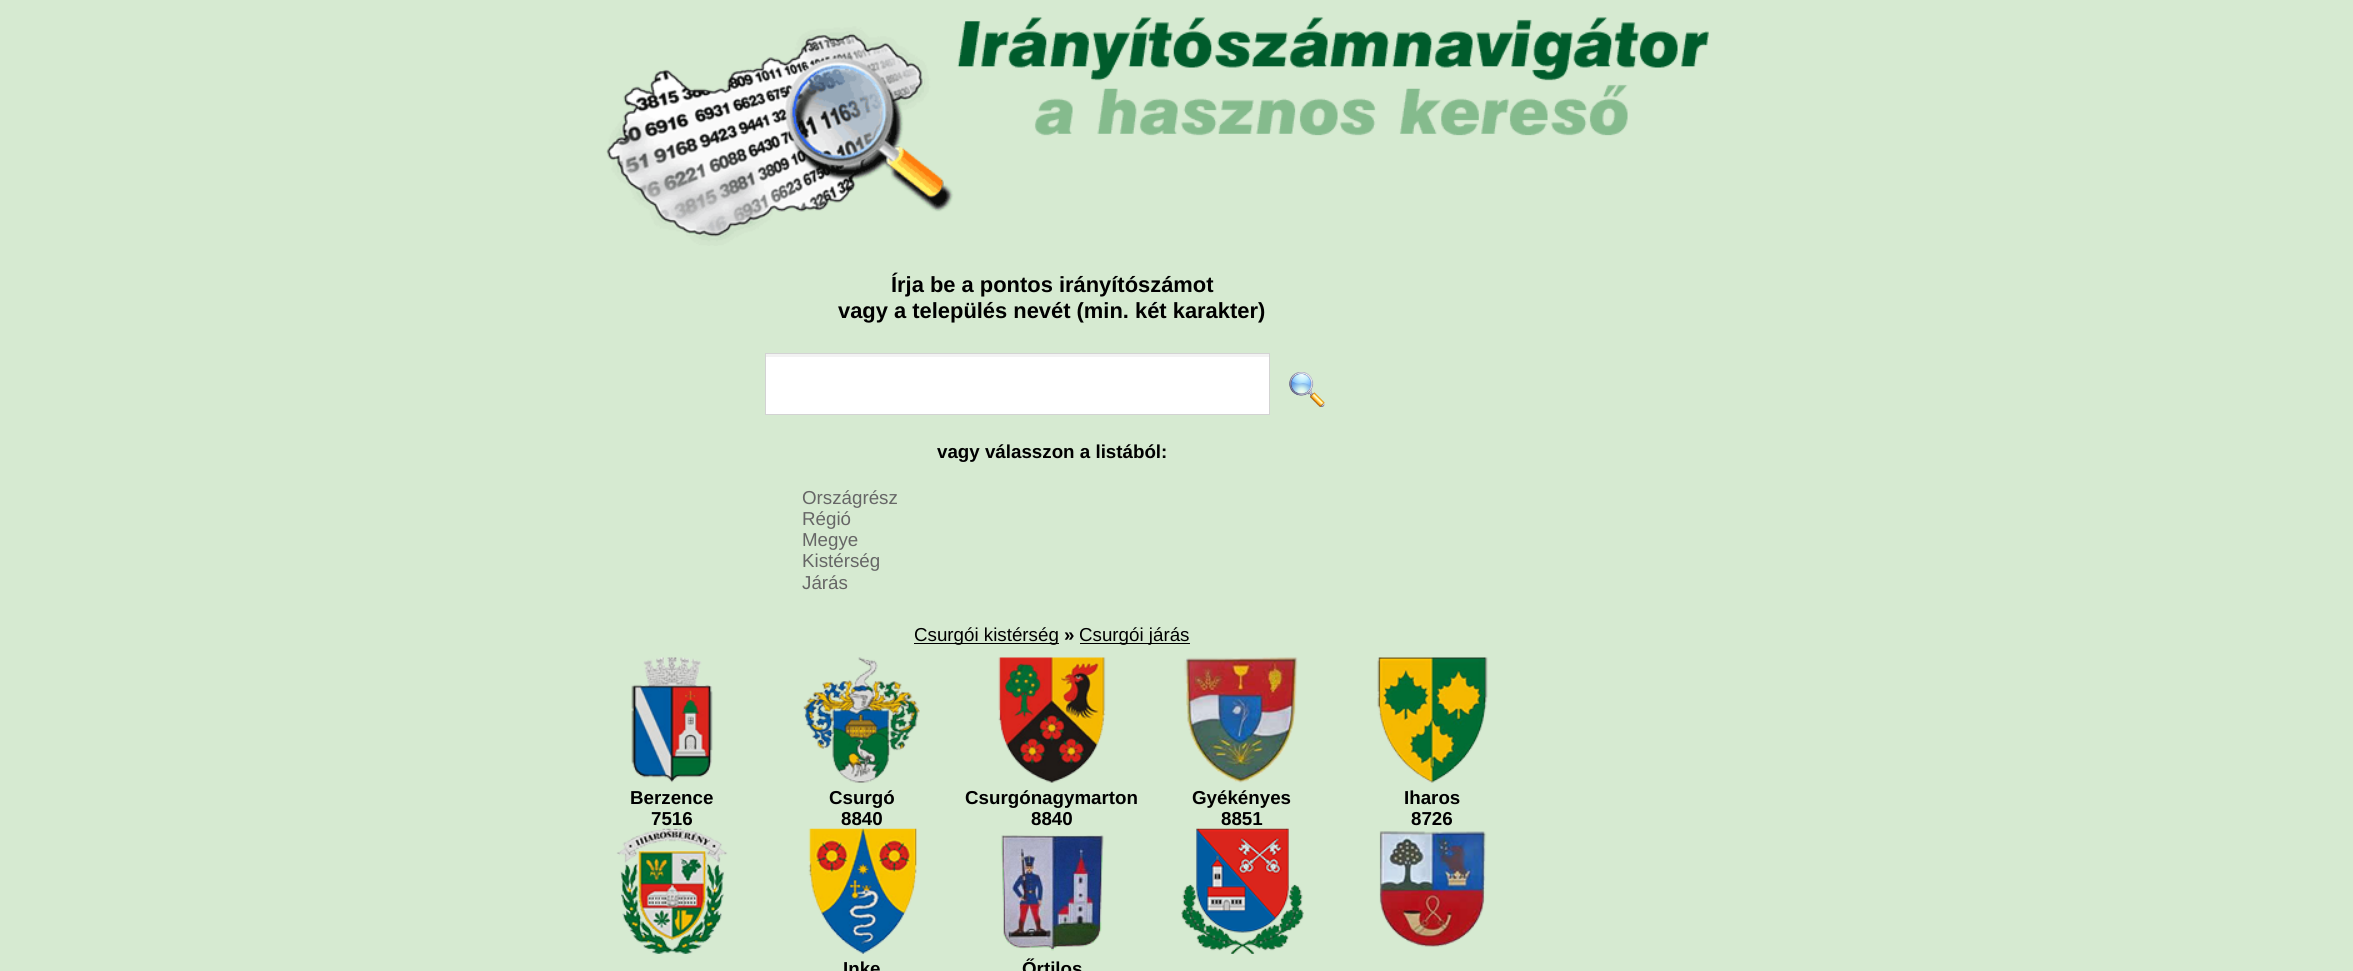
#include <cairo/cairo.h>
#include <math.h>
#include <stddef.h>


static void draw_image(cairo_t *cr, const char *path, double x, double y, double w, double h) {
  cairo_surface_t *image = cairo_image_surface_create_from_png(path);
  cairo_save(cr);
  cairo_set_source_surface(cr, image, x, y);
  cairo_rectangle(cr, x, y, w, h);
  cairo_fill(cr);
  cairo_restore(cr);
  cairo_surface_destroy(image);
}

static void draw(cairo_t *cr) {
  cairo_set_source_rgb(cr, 214 / 255.0, 234 / 255.0, 209 / 255.0);
  cairo_paint(cr);
  draw_image(cr, "images/1.png", 606, 17, 1103, 229);
  cairo_set_source_rgb(cr, 1, 1, 1);
  cairo_rectangle(cr, 766, 357, 503, 57);
  cairo_fill(cr);
  cairo_set_source_rgb(cr, 242 / 255.0, 242 / 255.0, 242 / 255.0);
  cairo_rectangle(cr, 765, 354, 505, 3);
  cairo_fill(cr);
  cairo_rectangle(cr, 765.5, 353.5, 504, 61);
  cairo_set_source_rgb(cr, 211 / 255.0, 211 / 255.0, 211 / 255.0);
  cairo_set_line_width(cr, 1);
  cairo_stroke(cr);
  draw_image(cr, "images/2.png", 1289, 372, 36, 35);
  cairo_set_source_rgb(cr, 0, 0, 0);
  cairo_rectangle(cr, 914, 643, 145, 1);
  cairo_fill(cr);
  cairo_rectangle(cr, 1080, 643, 110, 1);
  cairo_fill(cr);
  draw_image(cr, "images/3.png", 631, 657, 82, 126);
  draw_image(cr, "images/4.png", 803, 657, 117, 126);
  draw_image(cr, "images/5.png", 998, 657, 108, 126);
  draw_image(cr, "images/6.png", 1184, 657, 114, 126);
  draw_image(cr, "images/7.png", 1377, 657, 111, 126);
  draw_image(cr, "images/8.png", 616, 828, 112, 126);
  draw_image(cr, "images/9.png", 1181, 828, 123, 126);
  draw_image(cr, "images/10.png", 1379, 831, 108, 116);
  draw_image(cr, "images/11.png", 808, 828, 109, 126);
  draw_image(cr, "images/12.png", 1001, 835, 103, 116);
  cairo_select_font_face(cr, "Liberation Sans", CAIRO_FONT_SLANT_NORMAL, CAIRO_FONT_WEIGHT_BOLD);
  cairo_set_font_size(cr, 21.9);
  cairo_move_to(cr, 891, 292);
  cairo_show_text(cr, "Írja be a pontos irányítószámot");
  cairo_move_to(cr, 838, 318);
  cairo_show_text(cr, "vagy a település nevét (min. két karakter)");
  cairo_set_font_size(cr, 18.75);
  cairo_move_to(cr, 937, 458);
  cairo_show_text(cr, "vagy válasszon a listából:");
  cairo_select_font_face(cr, "Liberation Sans", CAIRO_FONT_SLANT_NORMAL, CAIRO_FONT_WEIGHT_NORMAL);
  cairo_set_source_rgb(cr, 102 / 255.0, 102 / 255.0, 102 / 255.0);
  cairo_move_to(cr, 802, 504);
  cairo_show_text(cr, "Országrész");
  cairo_move_to(cr, 802, 525);
  cairo_show_text(cr, "Régió");
  cairo_move_to(cr, 802, 546);
  cairo_show_text(cr, "Megye");
  cairo_move_to(cr, 802, 567);
  cairo_show_text(cr, "Kistérség");
  cairo_move_to(cr, 802, 589);
  cairo_show_text(cr, "Járás");
  cairo_set_source_rgb(cr, 0, 0, 0);
  cairo_move_to(cr, 914, 641);
  cairo_show_text(cr, "Csurgói kistérség");
  cairo_select_font_face(cr, "Liberation Sans", CAIRO_FONT_SLANT_NORMAL, CAIRO_FONT_WEIGHT_BOLD);
  cairo_move_to(cr, 1064, 641);
  cairo_show_text(cr, "»");
  cairo_select_font_face(cr, "Liberation Sans", CAIRO_FONT_SLANT_NORMAL, CAIRO_FONT_WEIGHT_NORMAL);
  cairo_move_to(cr, 1079, 641);
  cairo_show_text(cr, "Csurgói járás");
  cairo_select_font_face(cr, "Liberation Sans", CAIRO_FONT_SLANT_NORMAL, CAIRO_FONT_WEIGHT_BOLD);
  cairo_move_to(cr, 630, 804);
  cairo_show_text(cr, "Berzence");
  cairo_move_to(cr, 651, 825);
  cairo_show_text(cr, "7516");
  cairo_move_to(cr, 829, 804);
  cairo_show_text(cr, "Csurgó");
  cairo_move_to(cr, 841, 825);
  cairo_show_text(cr, "8840");
  cairo_move_to(cr, 965, 804);
  cairo_show_text(cr, "Csurgónagymarton");
  cairo_move_to(cr, 1031, 825);
  cairo_show_text(cr, "8840");
  cairo_move_to(cr, 1192, 804);
  cairo_show_text(cr, "Gyékényes");
  cairo_move_to(cr, 1221, 825);
  cairo_show_text(cr, "8851");
  cairo_move_to(cr, 1404, 804);
  cairo_show_text(cr, "Iharos");
  cairo_move_to(cr, 1411, 825);
  cairo_show_text(cr, "8726");
  cairo_move_to(cr, 843, 975);
  cairo_show_text(cr, "Inke");
  cairo_move_to(cr, 1022, 975);
  cairo_show_text(cr, "Őrtilos");
}

int main(void) {
  cairo_surface_t *surface = cairo_image_surface_create(CAIRO_FORMAT_RGB24, 2353, 971);
  cairo_t *cr = cairo_create(surface);
  cairo_font_options_t *options = cairo_font_options_create();
  cairo_font_options_set_hint_metrics(options, CAIRO_HINT_METRICS_OFF);
  cairo_font_options_set_hint_style(options, CAIRO_HINT_STYLE_NONE);
  cairo_set_font_options(cr, options);
  cairo_set_miter_limit(cr, 4);
  draw(cr);
  cairo_surface_write_to_png(surface, "out.png");
  cairo_font_options_destroy(options);
  cairo_destroy(cr);
  cairo_surface_destroy(surface);
  return 0;
}
